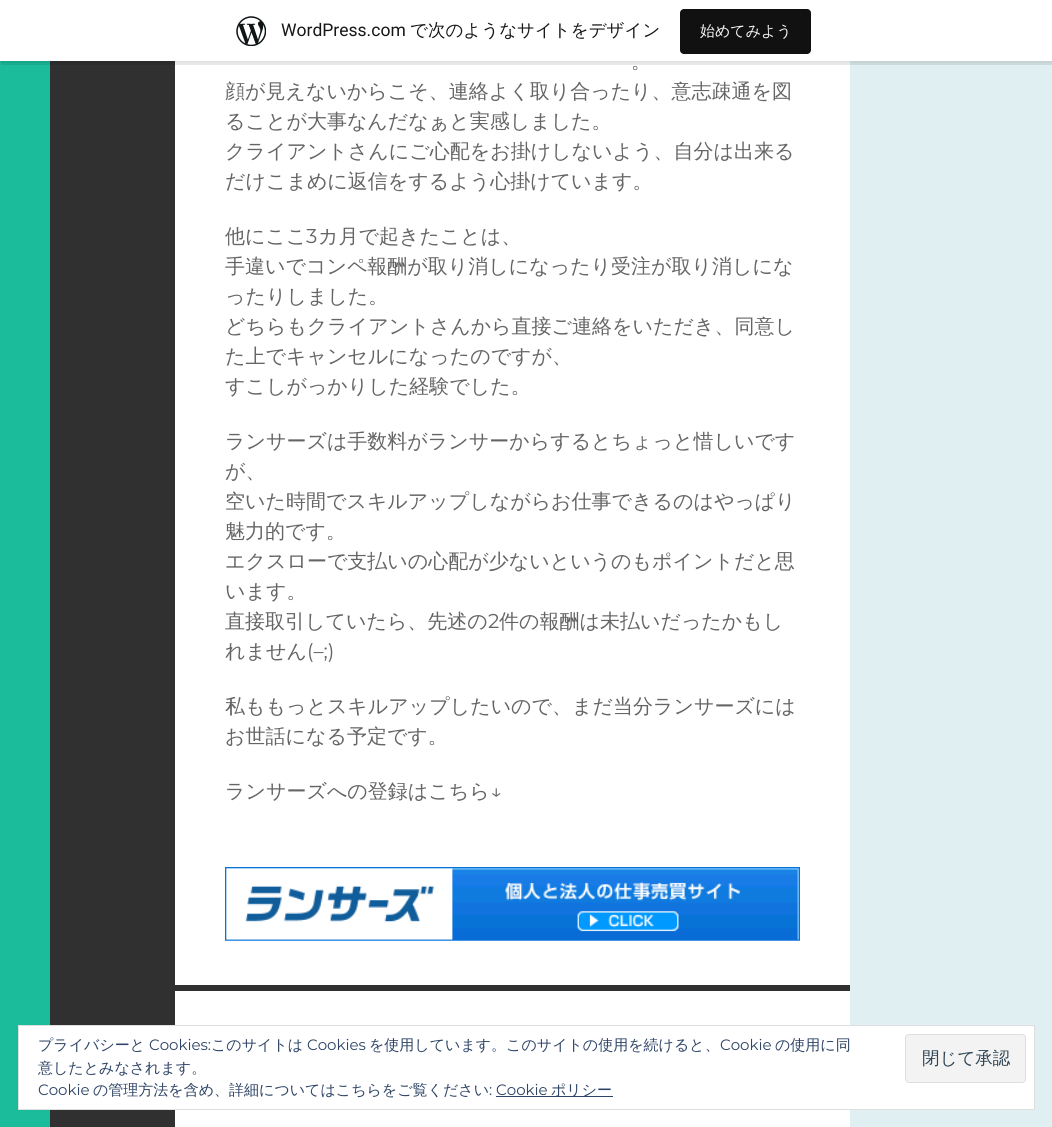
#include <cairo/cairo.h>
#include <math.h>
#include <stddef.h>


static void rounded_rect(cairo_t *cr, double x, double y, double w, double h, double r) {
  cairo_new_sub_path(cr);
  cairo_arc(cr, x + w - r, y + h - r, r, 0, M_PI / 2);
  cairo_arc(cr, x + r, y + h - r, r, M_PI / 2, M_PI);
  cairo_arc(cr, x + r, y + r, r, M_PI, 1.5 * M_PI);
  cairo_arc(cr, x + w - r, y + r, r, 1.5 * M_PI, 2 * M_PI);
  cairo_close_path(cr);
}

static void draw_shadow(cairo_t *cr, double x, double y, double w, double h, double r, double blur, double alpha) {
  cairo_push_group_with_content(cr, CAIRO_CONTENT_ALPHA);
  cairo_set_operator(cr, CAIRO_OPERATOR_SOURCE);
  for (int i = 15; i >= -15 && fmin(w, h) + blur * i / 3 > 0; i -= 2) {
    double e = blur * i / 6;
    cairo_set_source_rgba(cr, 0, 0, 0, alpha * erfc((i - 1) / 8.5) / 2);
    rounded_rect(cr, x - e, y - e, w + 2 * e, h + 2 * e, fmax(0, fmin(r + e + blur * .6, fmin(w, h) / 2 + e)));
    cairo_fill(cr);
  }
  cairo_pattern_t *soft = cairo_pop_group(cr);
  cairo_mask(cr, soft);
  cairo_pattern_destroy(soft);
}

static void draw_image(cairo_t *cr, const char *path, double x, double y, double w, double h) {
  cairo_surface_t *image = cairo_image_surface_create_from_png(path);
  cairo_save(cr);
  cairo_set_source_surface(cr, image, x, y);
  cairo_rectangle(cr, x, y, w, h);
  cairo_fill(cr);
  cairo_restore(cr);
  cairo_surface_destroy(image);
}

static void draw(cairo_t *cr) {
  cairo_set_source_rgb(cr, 224 / 255.0, 239 / 255.0, 241 / 255.0);
  cairo_paint(cr);
  cairo_set_source_rgb(cr, 26 / 255.0, 188 / 255.0, 156 / 255.0);
  cairo_rectangle(cr, 0, 61, 50, 1066);
  cairo_fill(cr);
  cairo_set_source_rgb(cr, 48 / 255.0, 48 / 255.0, 48 / 255.0);
  cairo_rectangle(cr, 50, 61, 125, 1066);
  cairo_fill(cr);
  cairo_set_source_rgb(cr, 1, 1, 1);
  cairo_rectangle(cr, 175, 61, 675, 1066);
  cairo_fill(cr);
  cairo_set_source_rgb(cr, 0, 0, 0);
  draw_shadow(cr, 0, 1, 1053, 62, 0, 1, 0.05);
  cairo_set_source_rgba(cr, 0, 0, 0, 0.08);
  cairo_new_path(cr);
  cairo_move_to(cr, 1, 61);
  cairo_line_to(cr, 1, 65);
  cairo_line_to(cr, 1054, 65);
  cairo_line_to(cr, 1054, 4);
  cairo_line_to(cr, 1052, 4);
  cairo_line_to(cr, 1052, 61);
  cairo_close_path(cr);
  cairo_fill(cr);
  cairo_set_source_rgb(cr, 1, 1, 1);
  cairo_rectangle(cr, 0, 0, 1052, 61);
  cairo_fill(cr);
  draw_image(cr, "images/1.png", 236, 16, 30, 30);
  cairo_set_source_rgb(cr, 17 / 255.0, 17 / 255.0, 17 / 255.0);
  rounded_rect(cr, 680, 9, 131, 45, 4);
  cairo_fill(cr);
  draw_image(cr, "images/2.png", 225, 867, 575, 74);
  cairo_set_source_rgb(cr, 48 / 255.0, 48 / 255.0, 48 / 255.0);
  cairo_rectangle(cr, 175, 985, 675, 6);
  cairo_fill(cr);
  cairo_set_source_rgb(cr, 1, 1, 1);
  cairo_rectangle(cr, 18.5, 1025.5, 1016, 84);
  cairo_fill_preserve(cr);
  cairo_set_source_rgb(cr, 222 / 255.0, 222 / 255.0, 222 / 255.0);
  cairo_set_line_width(cr, 1);
  cairo_stroke(cr);
  cairo_set_source_rgb(cr, 243 / 255.0, 243 / 255.0, 243 / 255.0);
  rounded_rect(cr, 905.5, 1034.5, 120, 48, 3.5);
  cairo_fill_preserve(cr);
  cairo_set_source_rgb(cr, 222 / 255.0, 222 / 255.0, 222 / 255.0);
  cairo_stroke(cr);
  cairo_set_source_rgb(cr, 46 / 255.0, 68 / 255.0, 103 / 255.0);
  cairo_rectangle(cr, 496, 1096, 117, 1);
  cairo_fill(cr);
  cairo_select_font_face(cr, "Roboto", CAIRO_FONT_SLANT_NORMAL, CAIRO_FONT_WEIGHT_NORMAL);
  cairo_set_font_size(cr, 17.5);
  cairo_set_source_rgb(cr, 23 / 255.0, 23 / 255.0, 23 / 255.0);
  cairo_move_to(cr, 281, 36);
  cairo_show_text(cr, "WordPress.com");
  cairo_select_font_face(cr, "WenQuanYi Zen Hei Medium", CAIRO_FONT_SLANT_NORMAL, CAIRO_FONT_WEIGHT_NORMAL);
  cairo_move_to(cr, 410, 36);
  cairo_show_text(cr, "で次のようなサイトをデザイン");
  cairo_set_font_size(cr, 15);
  cairo_set_source_rgb(cr, 246 / 255.0, 247 / 255.0, 247 / 255.0);
  cairo_move_to(cr, 700, 36);
  cairo_show_text(cr, "始めてみよう");
  cairo_set_font_size(cr, 20);
  cairo_set_source_rgb(cr, 101 / 255.0, 101 / 255.0, 101 / 255.0);
  cairo_move_to(cr, 631, 68);
  cairo_show_text(cr, "。");
  cairo_move_to(cr, 225, 98);
  cairo_show_text(cr, "顔が見えないからこそ、連絡よく取り合ったり、意志疎通を図");
  cairo_move_to(cr, 225, 128);
  cairo_show_text(cr, "ることが大事なんだなぁと実感しました。");
  cairo_move_to(cr, 225, 158);
  cairo_show_text(cr, "クライアントさんにご心配をお掛けしないよう、自分は出来る");
  cairo_move_to(cr, 225, 188);
  cairo_show_text(cr, "だけこまめに返信をするよう心掛けています。");
  cairo_move_to(cr, 225, 243);
  cairo_show_text(cr, "他にここ");
  cairo_select_font_face(cr, "Montserrat", CAIRO_FONT_SLANT_NORMAL, CAIRO_FONT_WEIGHT_NORMAL);
  cairo_move_to(cr, 306, 243);
  cairo_show_text(cr, "3");
  cairo_select_font_face(cr, "WenQuanYi Zen Hei Medium", CAIRO_FONT_SLANT_NORMAL, CAIRO_FONT_WEIGHT_NORMAL);
  cairo_move_to(cr, 318, 243);
  cairo_show_text(cr, "カ月で起きたことは、");
  cairo_move_to(cr, 225, 273);
  cairo_show_text(cr, "手違いでコンペ報酬が取り消しになったり受注が取り消しにな");
  cairo_move_to(cr, 225, 303);
  cairo_show_text(cr, "ったりしました。");
  cairo_move_to(cr, 225, 333);
  cairo_show_text(cr, "どちらもクライアントさんから直接ご連絡をいただき、同意し");
  cairo_move_to(cr, 225, 363);
  cairo_show_text(cr, "た上でキャンセルになったのですが、");
  cairo_move_to(cr, 225, 393);
  cairo_show_text(cr, "すこしがっかりした経験でした。");
  cairo_move_to(cr, 225, 448);
  cairo_show_text(cr, "ランサーズは手数料がランサーからするとちょっと惜しいです");
  cairo_move_to(cr, 225, 478);
  cairo_show_text(cr, "が、");
  cairo_move_to(cr, 225, 508);
  cairo_show_text(cr, "空いた時間でスキルアップしながらお仕事できるのはやっぱり");
  cairo_move_to(cr, 225, 538);
  cairo_show_text(cr, "魅力的です。");
  cairo_move_to(cr, 225, 568);
  cairo_show_text(cr, "エクスローで支払いの心配が少ないというのもポイントだと思");
  cairo_move_to(cr, 225, 598);
  cairo_show_text(cr, "います。");
  cairo_move_to(cr, 225, 628);
  cairo_show_text(cr, "直接取引していたら、先述の");
  cairo_select_font_face(cr, "Montserrat", CAIRO_FONT_SLANT_NORMAL, CAIRO_FONT_WEIGHT_NORMAL);
  cairo_move_to(cr, 488, 628);
  cairo_show_text(cr, "2");
  cairo_select_font_face(cr, "WenQuanYi Zen Hei Medium", CAIRO_FONT_SLANT_NORMAL, CAIRO_FONT_WEIGHT_NORMAL);
  cairo_move_to(cr, 499, 628);
  cairo_show_text(cr, "件の報酬は未払いだったかもし");
  cairo_move_to(cr, 225, 658);
  cairo_show_text(cr, "れません");
  cairo_select_font_face(cr, "Montserrat", CAIRO_FONT_SLANT_NORMAL, CAIRO_FONT_WEIGHT_NORMAL);
  cairo_move_to(cr, 307, 658);
  cairo_show_text(cr, "(–;)");
  cairo_select_font_face(cr, "WenQuanYi Zen Hei Medium", CAIRO_FONT_SLANT_NORMAL, CAIRO_FONT_WEIGHT_NORMAL);
  cairo_move_to(cr, 225, 713);
  cairo_show_text(cr, "私ももっとスキルアップしたいので、まだ当分ランサーズには");
  cairo_move_to(cr, 225, 743);
  cairo_show_text(cr, "お世話になる予定です。");
  cairo_move_to(cr, 225, 798);
  cairo_show_text(cr, "ランサーズへの登録はこちら");
  cairo_select_font_face(cr, "Montserrat", CAIRO_FONT_SLANT_NORMAL, CAIRO_FONT_WEIGHT_NORMAL);
  cairo_move_to(cr, 490, 798);
  cairo_show_text(cr, "↓");
  cairo_select_font_face(cr, "WenQuanYi Zen Hei Medium", CAIRO_FONT_SLANT_NORMAL, CAIRO_FONT_WEIGHT_NORMAL);
  cairo_set_font_size(cr, 15);
  cairo_set_source_rgb(cr, 46 / 255.0, 68 / 255.0, 103 / 255.0);
  cairo_move_to(cr, 38, 1050);
  cairo_show_text(cr, "プライバシーと");
  cairo_select_font_face(cr, "Montserrat", CAIRO_FONT_SLANT_NORMAL, CAIRO_FONT_WEIGHT_NORMAL);
  cairo_move_to(cr, 149, 1050);
  cairo_show_text(cr, "Cookies:");
  cairo_select_font_face(cr, "WenQuanYi Zen Hei Medium", CAIRO_FONT_SLANT_NORMAL, CAIRO_FONT_WEIGHT_NORMAL);
  cairo_move_to(cr, 211, 1050);
  cairo_show_text(cr, "このサイトは");
  cairo_select_font_face(cr, "Montserrat", CAIRO_FONT_SLANT_NORMAL, CAIRO_FONT_WEIGHT_NORMAL);
  cairo_move_to(cr, 307, 1050);
  cairo_show_text(cr, "Cookies");
  cairo_select_font_face(cr, "WenQuanYi Zen Hei Medium", CAIRO_FONT_SLANT_NORMAL, CAIRO_FONT_WEIGHT_NORMAL);
  cairo_move_to(cr, 369, 1050);
  cairo_show_text(cr, "を使用しています。このサイトの使用を続けると、");
  cairo_select_font_face(cr, "Montserrat", CAIRO_FONT_SLANT_NORMAL, CAIRO_FONT_WEIGHT_NORMAL);
  cairo_move_to(cr, 720, 1050);
  cairo_show_text(cr, "Cookie");
  cairo_select_font_face(cr, "WenQuanYi Zen Hei Medium", CAIRO_FONT_SLANT_NORMAL, CAIRO_FONT_WEIGHT_NORMAL);
  cairo_move_to(cr, 775, 1050);
  cairo_show_text(cr, "の使用に同");
  cairo_move_to(cr, 38, 1073);
  cairo_show_text(cr, "意したとみなされます。");
  cairo_set_font_size(cr, 17.5);
  cairo_set_source_rgb(cr, 46 / 255.0, 68 / 255.0, 83 / 255.0);
  cairo_move_to(cr, 922, 1064);
  cairo_show_text(cr, "閉じて承認");
  cairo_select_font_face(cr, "Montserrat", CAIRO_FONT_SLANT_NORMAL, CAIRO_FONT_WEIGHT_NORMAL);
  cairo_set_font_size(cr, 15);
  cairo_set_source_rgb(cr, 46 / 255.0, 68 / 255.0, 103 / 255.0);
  cairo_move_to(cr, 38, 1095);
  cairo_show_text(cr, "Cookie");
  cairo_select_font_face(cr, "WenQuanYi Zen Hei Medium", CAIRO_FONT_SLANT_NORMAL, CAIRO_FONT_WEIGHT_NORMAL);
  cairo_move_to(cr, 93, 1095);
  cairo_show_text(cr, "の管理方法を含め、詳細についてはこちらをご覧ください");
  cairo_select_font_face(cr, "Montserrat", CAIRO_FONT_SLANT_NORMAL, CAIRO_FONT_WEIGHT_NORMAL);
  cairo_move_to(cr, 489, 1095);
  cairo_show_text(cr, ": Cookie");
  cairo_select_font_face(cr, "WenQuanYi Zen Hei Medium", CAIRO_FONT_SLANT_NORMAL, CAIRO_FONT_WEIGHT_NORMAL);
  cairo_move_to(cr, 551, 1095);
  cairo_show_text(cr, "ポリシー");
}

int main(void) {
  cairo_surface_t *surface = cairo_image_surface_create(CAIRO_FORMAT_RGB24, 1052, 1127);
  cairo_t *cr = cairo_create(surface);
  cairo_font_options_t *options = cairo_font_options_create();
  cairo_font_options_set_hint_metrics(options, CAIRO_HINT_METRICS_OFF);
  cairo_font_options_set_hint_style(options, CAIRO_HINT_STYLE_NONE);
  cairo_set_font_options(cr, options);
  cairo_set_miter_limit(cr, 4);
  draw(cr);
  cairo_surface_write_to_png(surface, "out.png");
  cairo_font_options_destroy(options);
  cairo_destroy(cr);
  cairo_surface_destroy(surface);
  return 0;
}
